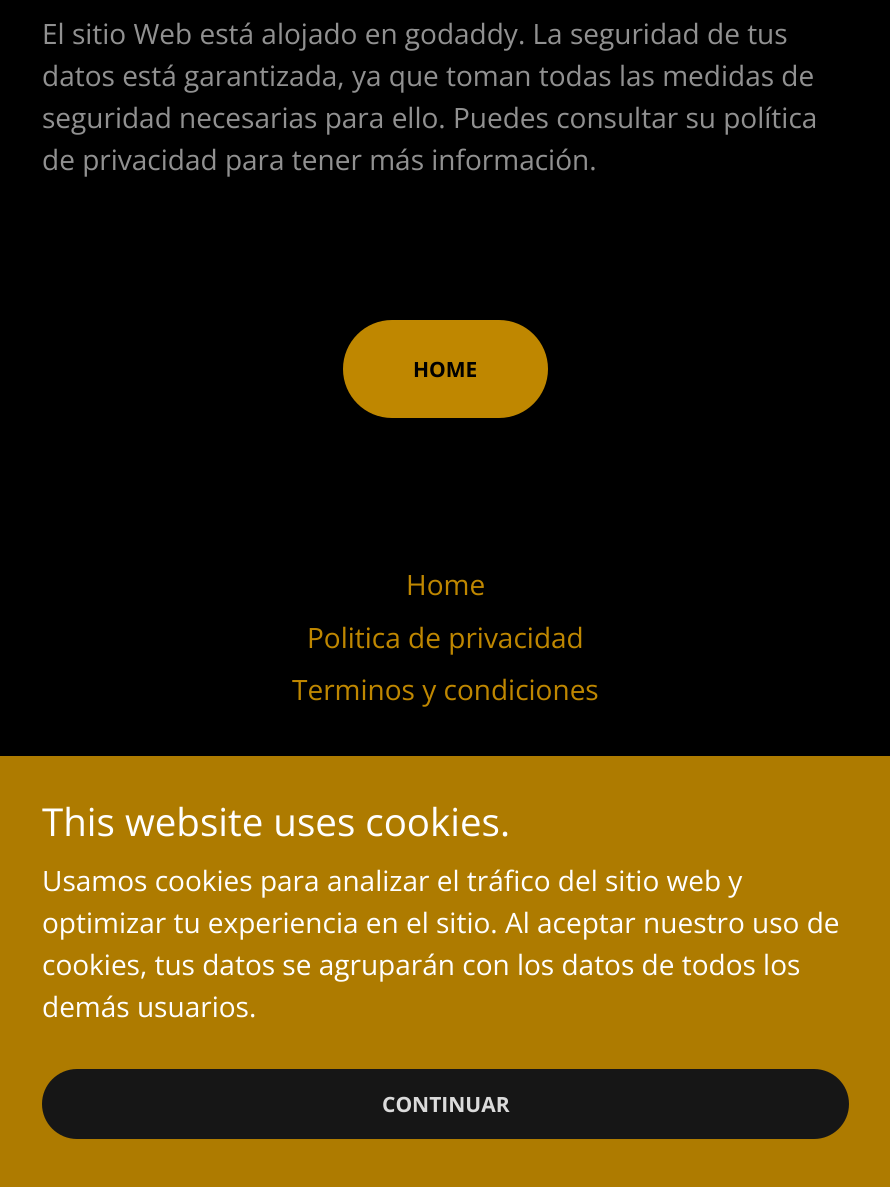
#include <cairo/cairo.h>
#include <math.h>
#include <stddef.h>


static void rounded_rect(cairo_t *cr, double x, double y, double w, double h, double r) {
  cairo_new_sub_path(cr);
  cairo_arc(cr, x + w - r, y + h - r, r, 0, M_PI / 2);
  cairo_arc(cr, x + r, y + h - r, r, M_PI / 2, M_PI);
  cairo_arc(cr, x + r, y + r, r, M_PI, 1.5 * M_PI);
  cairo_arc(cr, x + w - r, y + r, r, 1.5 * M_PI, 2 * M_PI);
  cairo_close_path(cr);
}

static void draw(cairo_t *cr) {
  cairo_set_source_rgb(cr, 0, 0, 0);
  cairo_paint(cr);
  cairo_set_source_rgb(cr, 191 / 255.0, 135 / 255.0, 0);
  rounded_rect(cr, 343, 320, 205, 98, 49);
  cairo_fill(cr);
  cairo_set_source_rgb(cr, 174 / 255.0, 123 / 255.0, 0);
  cairo_rectangle(cr, 0, 756, 890, 431);
  cairo_fill(cr);
  cairo_set_source_rgb(cr, 22 / 255.0, 22 / 255.0, 22 / 255.0);
  rounded_rect(cr, 42, 1069, 807, 70, 35);
  cairo_fill(cr);
  cairo_select_font_face(cr, "Open Sans", CAIRO_FONT_SLANT_NORMAL, CAIRO_FONT_WEIGHT_NORMAL);
  cairo_set_font_size(cr, 28);
  cairo_set_source_rgb(cr, 145 / 255.0, 145 / 255.0, 145 / 255.0);
  cairo_move_to(cr, 42, 44);
  cairo_show_text(cr, "El sitio Web está alojado en godaddy. La seguridad de tus");
  cairo_move_to(cr, 42, 86);
  cairo_show_text(cr, "datos está garantizada, ya que toman todas las medidas de");
  cairo_move_to(cr, 42, 128);
  cairo_show_text(cr, "seguridad necesarias para ello. Puedes consultar su política");
  cairo_move_to(cr, 42, 170);
  cairo_show_text(cr, "de privacidad para tener más información.");
  cairo_select_font_face(cr, "Open Sans", CAIRO_FONT_SLANT_NORMAL, CAIRO_FONT_WEIGHT_BOLD);
  cairo_set_font_size(cr, 21);
  cairo_set_source_rgb(cr, 0, 0, 0);
  cairo_move_to(cr, 413, 377);
  cairo_show_text(cr, "HOME");
  cairo_select_font_face(cr, "Open Sans", CAIRO_FONT_SLANT_NORMAL, CAIRO_FONT_WEIGHT_NORMAL);
  cairo_set_font_size(cr, 28);
  cairo_set_source_rgb(cr, 191 / 255.0, 135 / 255.0, 0);
  cairo_move_to(cr, 406, 595);
  cairo_show_text(cr, "Home");
  cairo_move_to(cr, 307, 648);
  cairo_show_text(cr, "Politica de privacidad");
  cairo_move_to(cr, 292, 700);
  cairo_show_text(cr, "Terminos y condiciones");
  cairo_set_font_size(cr, 38.5);
  cairo_set_source_rgb(cr, 1, 1, 1);
  cairo_move_to(cr, 42, 836);
  cairo_show_text(cr, "This website uses cookies.");
  cairo_set_font_size(cr, 28);
  cairo_move_to(cr, 42, 891);
  cairo_show_text(cr, "Usamos cookies para analizar el tráfico del sitio web y");
  cairo_move_to(cr, 42, 933);
  cairo_show_text(cr, "optimizar tu experiencia en el sitio. Al aceptar nuestro uso de");
  cairo_move_to(cr, 42, 975);
  cairo_show_text(cr, "cookies, tus datos se agruparán con los datos de todos los");
  cairo_move_to(cr, 42, 1017);
  cairo_show_text(cr, "demás usuarios.");
  cairo_select_font_face(cr, "Open Sans", CAIRO_FONT_SLANT_NORMAL, CAIRO_FONT_WEIGHT_BOLD);
  cairo_set_font_size(cr, 21);
  cairo_set_source_rgb(cr, 219 / 255.0, 219 / 255.0, 219 / 255.0);
  cairo_move_to(cr, 382, 1112);
  cairo_show_text(cr, "CONTINUAR");
}

int main(void) {
  cairo_surface_t *surface = cairo_image_surface_create(CAIRO_FORMAT_RGB24, 890, 1187);
  cairo_t *cr = cairo_create(surface);
  cairo_font_options_t *options = cairo_font_options_create();
  cairo_font_options_set_hint_metrics(options, CAIRO_HINT_METRICS_OFF);
  cairo_font_options_set_hint_style(options, CAIRO_HINT_STYLE_NONE);
  cairo_set_font_options(cr, options);
  cairo_set_miter_limit(cr, 4);
  draw(cr);
  cairo_surface_write_to_png(surface, "out.png");
  cairo_font_options_destroy(options);
  cairo_destroy(cr);
  cairo_surface_destroy(surface);
  return 0;
}
